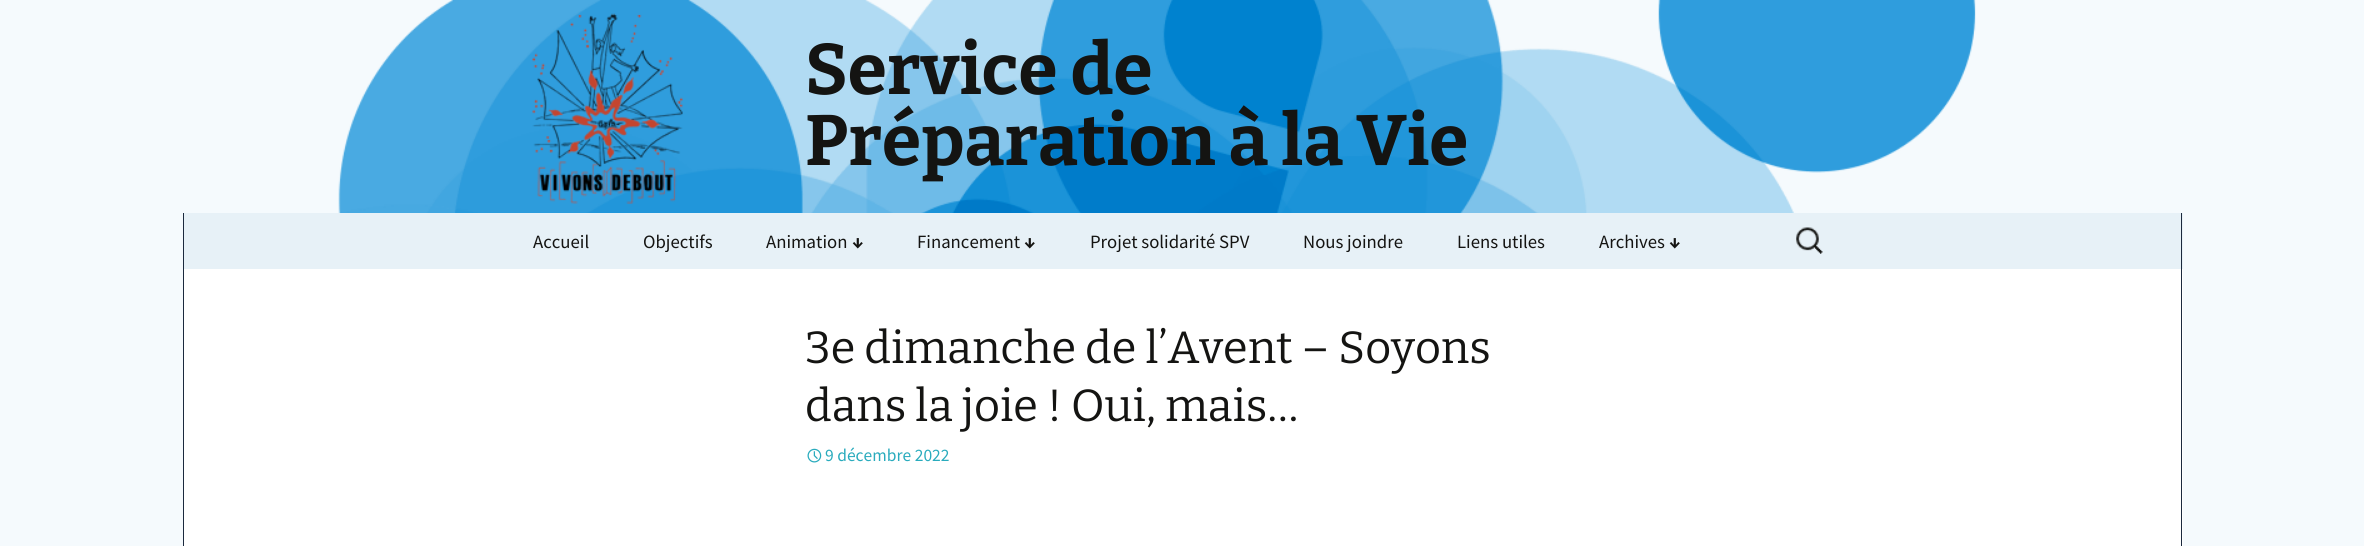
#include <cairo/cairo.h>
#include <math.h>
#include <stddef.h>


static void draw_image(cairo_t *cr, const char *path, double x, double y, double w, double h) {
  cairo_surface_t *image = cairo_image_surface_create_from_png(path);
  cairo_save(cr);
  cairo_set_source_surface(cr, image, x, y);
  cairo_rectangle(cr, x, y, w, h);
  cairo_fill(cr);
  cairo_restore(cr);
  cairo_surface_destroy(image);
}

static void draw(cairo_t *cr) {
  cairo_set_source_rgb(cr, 245 / 255.0, 250 / 255.0, 253 / 255.0);
  cairo_paint(cr);
  draw_image(cr, "images/1.png", 231, 0, 1745, 213);
  draw_image(cr, "images/2.png", 532, 13, 151, 191);
  cairo_set_source_rgb(cr, 231 / 255.0, 241 / 255.0, 247 / 255.0);
  cairo_rectangle(cr, 184, 213, 1999, 56);
  cairo_fill(cr);
  cairo_set_source_rgb(cr, 27 / 255.0, 41 / 255.0, 61 / 255.0);
  cairo_rectangle(cr, 2181, 213, 1, 56);
  cairo_fill(cr);
  cairo_rectangle(cr, 183, 213, 1, 333);
  cairo_fill(cr);
  draw_image(cr, "images/3.png", 1796, 227, 27, 27);
  cairo_set_source_rgb(cr, 1, 1, 1);
  cairo_rectangle(cr, 184, 269, 1999, 277);
  cairo_fill(cr);
  cairo_set_source_rgb(cr, 27 / 255.0, 41 / 255.0, 61 / 255.0);
  cairo_rectangle(cr, 2181, 269, 1, 277);
  cairo_fill(cr);
  draw_image(cr, "images/4.png", 807, 448, 15, 15);
  cairo_select_font_face(cr, "Bitter", CAIRO_FONT_SLANT_NORMAL, CAIRO_FONT_WEIGHT_BOLD);
  cairo_set_font_size(cr, 71.25);
  cairo_set_source_rgb(cr, 20 / 255.0, 20 / 255.0, 18 / 255.0);
  cairo_move_to(cr, 805, 94);
  cairo_show_text(cr, "Service de");
  cairo_move_to(cr, 805, 165);
  cairo_show_text(cr, "Préparation à la Vie");
  cairo_select_font_face(cr, "Source Sans Pro", CAIRO_FONT_SLANT_NORMAL, CAIRO_FONT_WEIGHT_NORMAL);
  cairo_set_font_size(cr, 18.75);
  cairo_move_to(cr, 533, 248);
  cairo_show_text(cr, "Accueil");
  cairo_move_to(cr, 643, 248);
  cairo_show_text(cr, "Objectifs");
  cairo_move_to(cr, 766, 248);
  cairo_show_text(cr, "Animation");
  cairo_select_font_face(cr, "Source Sans Pro", CAIRO_FONT_SLANT_NORMAL, CAIRO_FONT_WEIGHT_BOLD);
  cairo_move_to(cr, 852, 248);
  cairo_show_text(cr, "↓");
  cairo_select_font_face(cr, "Source Sans Pro", CAIRO_FONT_SLANT_NORMAL, CAIRO_FONT_WEIGHT_NORMAL);
  cairo_move_to(cr, 917, 248);
  cairo_show_text(cr, "Financement");
  cairo_select_font_face(cr, "Source Sans Pro", CAIRO_FONT_SLANT_NORMAL, CAIRO_FONT_WEIGHT_BOLD);
  cairo_move_to(cr, 1024, 248);
  cairo_show_text(cr, "↓");
  cairo_select_font_face(cr, "Source Sans Pro", CAIRO_FONT_SLANT_NORMAL, CAIRO_FONT_WEIGHT_NORMAL);
  cairo_move_to(cr, 1090, 248);
  cairo_show_text(cr, "Projet solidarité SPV");
  cairo_move_to(cr, 1303, 248);
  cairo_show_text(cr, "Nous joindre");
  cairo_move_to(cr, 1457, 248);
  cairo_show_text(cr, "Liens utiles");
  cairo_move_to(cr, 1599, 248);
  cairo_show_text(cr, "Archives");
  cairo_select_font_face(cr, "Source Sans Pro", CAIRO_FONT_SLANT_NORMAL, CAIRO_FONT_WEIGHT_BOLD);
  cairo_move_to(cr, 1669, 248);
  cairo_show_text(cr, "↓");
  cairo_select_font_face(cr, "Bitter", CAIRO_FONT_SLANT_NORMAL, CAIRO_FONT_WEIGHT_NORMAL);
  cairo_set_font_size(cr, 45);
  cairo_move_to(cr, 805, 363);
  cairo_show_text(cr, "3e dimanche de l’Avent – Soyons");
  cairo_move_to(cr, 805, 421);
  cairo_show_text(cr, "dans la joie ! Oui, mais…");
  cairo_select_font_face(cr, "Source Sans Pro", CAIRO_FONT_SLANT_NORMAL, CAIRO_FONT_WEIGHT_NORMAL);
  cairo_set_font_size(cr, 17.5);
  cairo_set_source_rgb(cr, 41 / 255.0, 171 / 255.0, 189 / 255.0);
  cairo_move_to(cr, 825, 461);
  cairo_show_text(cr, "9 décembre 2022");
}

int main(void) {
  cairo_surface_t *surface = cairo_image_surface_create(CAIRO_FORMAT_RGB24, 2364, 546);
  cairo_t *cr = cairo_create(surface);
  cairo_font_options_t *options = cairo_font_options_create();
  cairo_font_options_set_hint_metrics(options, CAIRO_HINT_METRICS_OFF);
  cairo_font_options_set_hint_style(options, CAIRO_HINT_STYLE_NONE);
  cairo_set_font_options(cr, options);
  cairo_set_miter_limit(cr, 4);
  draw(cr);
  cairo_surface_write_to_png(surface, "out.png");
  cairo_font_options_destroy(options);
  cairo_destroy(cr);
  cairo_surface_destroy(surface);
  return 0;
}
